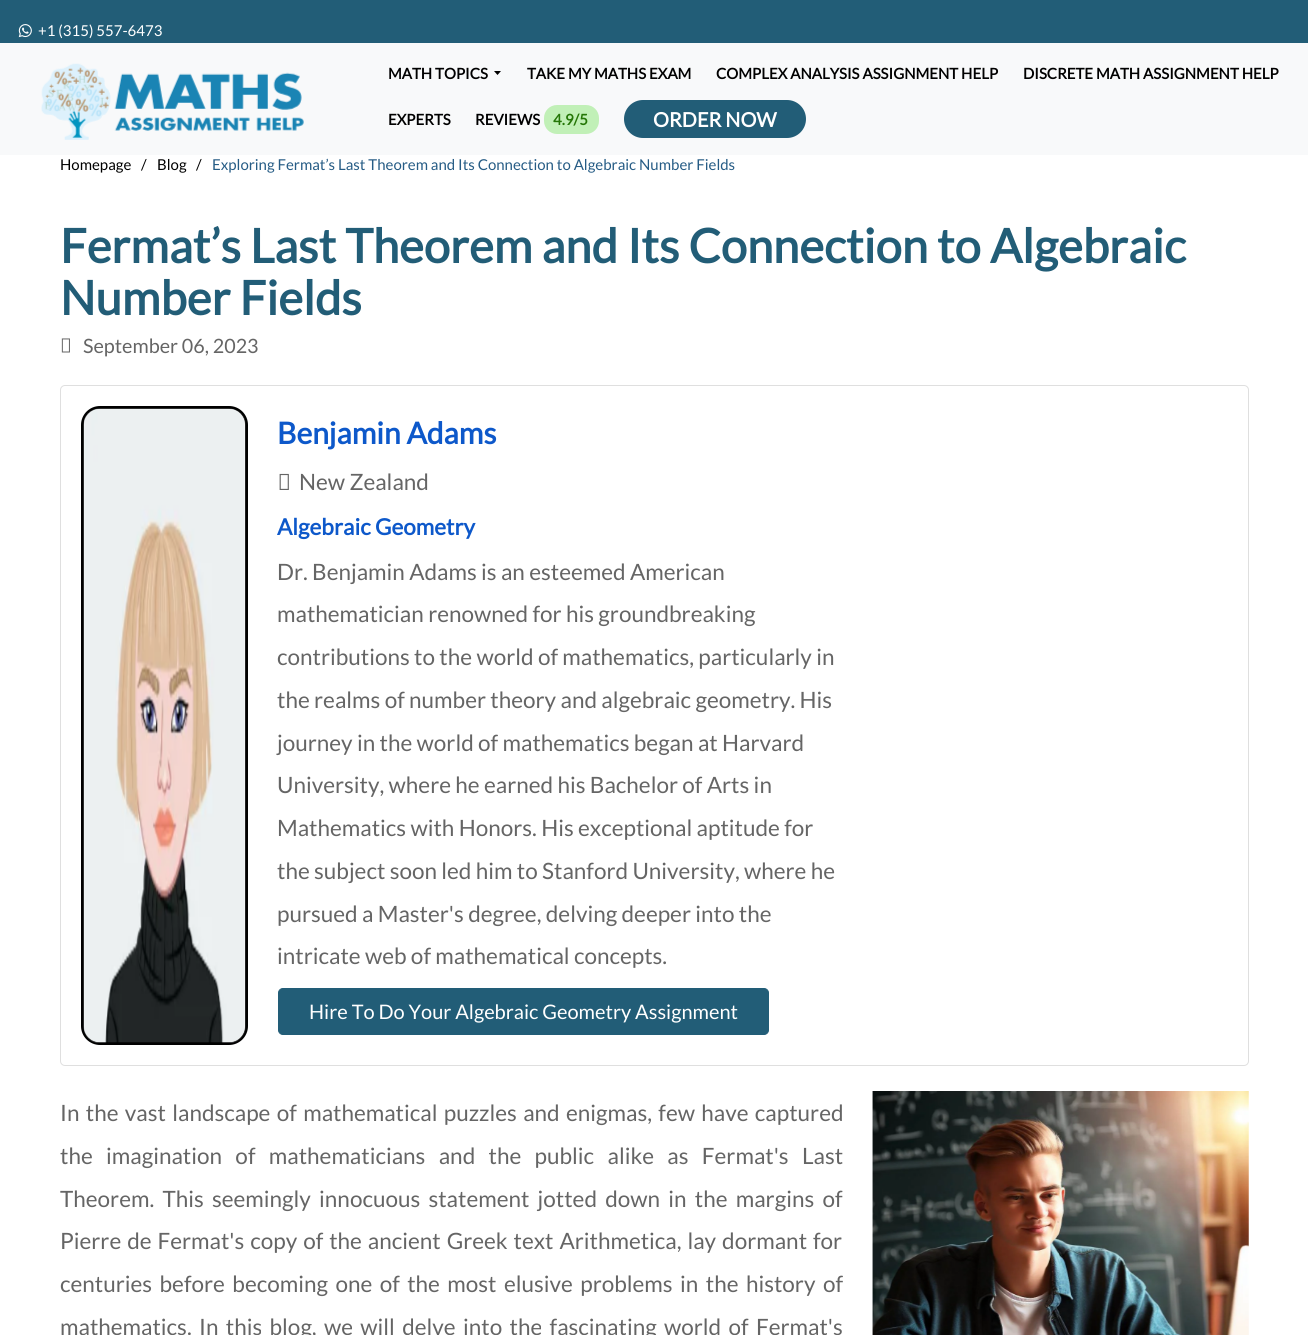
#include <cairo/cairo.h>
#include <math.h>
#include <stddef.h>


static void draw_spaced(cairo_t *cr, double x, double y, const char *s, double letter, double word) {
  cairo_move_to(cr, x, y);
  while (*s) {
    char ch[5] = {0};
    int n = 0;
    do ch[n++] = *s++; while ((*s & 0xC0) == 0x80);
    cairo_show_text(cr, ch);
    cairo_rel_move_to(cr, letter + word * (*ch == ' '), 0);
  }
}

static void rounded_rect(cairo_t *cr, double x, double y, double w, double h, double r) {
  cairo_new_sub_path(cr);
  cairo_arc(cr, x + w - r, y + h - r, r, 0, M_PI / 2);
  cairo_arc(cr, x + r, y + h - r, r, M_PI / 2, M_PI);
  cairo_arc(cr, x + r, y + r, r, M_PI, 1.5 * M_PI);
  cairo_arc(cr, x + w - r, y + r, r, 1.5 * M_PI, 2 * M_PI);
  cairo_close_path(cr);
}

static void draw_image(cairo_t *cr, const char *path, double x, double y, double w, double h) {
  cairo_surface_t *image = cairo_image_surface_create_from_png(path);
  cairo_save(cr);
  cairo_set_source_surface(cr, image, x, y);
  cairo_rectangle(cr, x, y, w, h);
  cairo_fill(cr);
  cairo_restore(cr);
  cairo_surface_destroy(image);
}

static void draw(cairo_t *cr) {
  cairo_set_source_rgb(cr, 1, 1, 1);
  cairo_paint(cr);
  cairo_set_source_rgb(cr, 34 / 255.0, 93 / 255.0, 119 / 255.0);
  cairo_rectangle(cr, 0, 0, 1308, 43);
  cairo_fill(cr);
  draw_image(cr, "images/1.png", 18, 24, 14, 14);
  cairo_set_source_rgb(cr, 248 / 255.0, 249 / 255.0, 250 / 255.0);
  cairo_rectangle(cr, 0, 43, 1308, 112);
  cairo_fill(cr);
  draw_image(cr, "images/2.png", 41, 63, 263, 77);
  cairo_set_source_rgb(cr, 0, 0, 0);
  cairo_new_path(cr);
  cairo_move_to(cr, 494, 71);
  cairo_line_to(cr, 501, 71);
  cairo_line_to(cr, 497.5, 75);
  cairo_close_path(cr);
  cairo_fill(cr);
  cairo_set_source_rgb(cr, 193 / 255.0, 240 / 255.0, 183 / 255.0);
  rounded_rect(cr, 544, 105, 55, 29, 13);
  cairo_fill(cr);
  cairo_set_source_rgb(cr, 34 / 255.0, 93 / 255.0, 119 / 255.0);
  rounded_rect(cr, 624, 100, 182, 38, 19);
  cairo_fill(cr);
  draw_image(cr, "images/3.png", 61, 338, 9, 15);
  rounded_rect(cr, 60.5, 385.5, 1188, 680, 4.5);
  cairo_set_source_rgb(cr, 223 / 255.0, 223 / 255.0, 223 / 255.0);
  cairo_set_line_width(cr, 1);
  cairo_stroke(cr);
  rounded_rect(cr, 82.5, 407.5, 164, 636, 17.5);
  cairo_set_source_rgb(cr, 0, 0, 0);
  cairo_set_line_width(cr, 3);
  cairo_stroke(cr);
  draw_image(cr, "images/4.png", 83, 408, 163, 635);
  draw_image(cr, "images/5.png", 279, 473, 10, 17);
  cairo_set_source_rgb(cr, 34 / 255.0, 93 / 255.0, 119 / 255.0);
  rounded_rect(cr, 278.5, 988.5, 490, 46, 4.5);
  cairo_fill_preserve(cr);
  cairo_set_line_width(cr, 1);
  cairo_stroke(cr);
  draw_image(cr, "images/6.png", 872, 1091, 377, 244);
  cairo_select_font_face(cr, "Lato", CAIRO_FONT_SLANT_NORMAL, CAIRO_FONT_WEIGHT_NORMAL);
  cairo_set_font_size(cr, 15);
  cairo_set_source_rgb(cr, 1, 1, 1);
  cairo_move_to(cr, 38, 36);
  cairo_show_text(cr, "+1 (315) 557-6473");
  cairo_select_font_face(cr, "Lato", CAIRO_FONT_SLANT_NORMAL, CAIRO_FONT_WEIGHT_BOLD);
  cairo_set_source_rgb(cr, 0, 0, 0);
  cairo_move_to(cr, 388, 79);
  cairo_show_text(cr, "MATH TOPICS");
  cairo_move_to(cr, 527, 79);
  cairo_show_text(cr, "TAKE MY MATHS EXAM");
  cairo_move_to(cr, 716, 79);
  cairo_show_text(cr, "COMPLEX ANALYSIS ASSIGNMENT HELP");
  cairo_move_to(cr, 1023, 79);
  cairo_show_text(cr, "DISCRETE MATH ASSIGNMENT HELP");
  cairo_move_to(cr, 388, 125);
  cairo_show_text(cr, "EXPERTS");
  cairo_move_to(cr, 475, 125);
  cairo_show_text(cr, "REVIEWS");
  cairo_set_source_rgb(cr, 37 / 255.0, 119 / 255.0, 7 / 255.0);
  cairo_move_to(cr, 553, 125);
  cairo_show_text(cr, "4.9/5");
  cairo_set_font_size(cr, 20);
  cairo_set_source_rgb(cr, 1, 1, 1);
  cairo_move_to(cr, 653, 127);
  cairo_show_text(cr, "ORDER NOW");
  cairo_select_font_face(cr, "Lato", CAIRO_FONT_SLANT_NORMAL, CAIRO_FONT_WEIGHT_NORMAL);
  cairo_set_font_size(cr, 15);
  cairo_set_source_rgb(cr, 0, 0, 0);
  cairo_move_to(cr, 60, 170);
  cairo_show_text(cr, "Homepage");
  cairo_move_to(cr, 141, 170);
  cairo_show_text(cr, "/");
  cairo_move_to(cr, 157, 170);
  cairo_show_text(cr, "Blog");
  cairo_move_to(cr, 196, 170);
  cairo_show_text(cr, "/");
  cairo_set_source_rgb(cr, 38 / 255.0, 92 / 255.0, 133 / 255.0);
  cairo_move_to(cr, 212, 170);
  cairo_show_text(cr, "Exploring Fermat’s Last Theorem and Its Connection to Algebraic Number Fields");
  cairo_select_font_face(cr, "Lato", CAIRO_FONT_SLANT_NORMAL, CAIRO_FONT_WEIGHT_BOLD);
  cairo_set_font_size(cr, 47.1);
  cairo_set_source_rgb(cr, 34 / 255.0, 93 / 255.0, 119 / 255.0);
  cairo_move_to(cr, 60, 263);
  cairo_show_text(cr, "Fermat’s Last Theorem and Its Connection to Algebraic");
  cairo_move_to(cr, 60, 315);
  cairo_show_text(cr, "Number Fields");
  cairo_select_font_face(cr, "Lato", CAIRO_FONT_SLANT_NORMAL, CAIRO_FONT_WEIGHT_NORMAL);
  cairo_set_font_size(cr, 19.75);
  cairo_set_source_rgb(cr, 101 / 255.0, 101 / 255.0, 101 / 255.0);
  cairo_move_to(cr, 83, 353);
  cairo_show_text(cr, "September 06, 2023");
  cairo_select_font_face(cr, "Lato", CAIRO_FONT_SLANT_NORMAL, CAIRO_FONT_WEIGHT_BOLD);
  cairo_set_font_size(cr, 30);
  cairo_set_source_rgb(cr, 13 / 255.0, 88 / 255.0, 202 / 255.0);
  cairo_move_to(cr, 277, 444);
  cairo_show_text(cr, "Benjamin Adams");
  cairo_select_font_face(cr, "Lato", CAIRO_FONT_SLANT_NORMAL, CAIRO_FONT_WEIGHT_NORMAL);
  cairo_set_font_size(cr, 22.5);
  cairo_set_source_rgb(cr, 101 / 255.0, 101 / 255.0, 101 / 255.0);
  cairo_move_to(cr, 299, 490);
  cairo_show_text(cr, "New Zealand");
  cairo_select_font_face(cr, "Lato", CAIRO_FONT_SLANT_NORMAL, CAIRO_FONT_WEIGHT_BOLD);
  cairo_set_source_rgb(cr, 13 / 255.0, 88 / 255.0, 202 / 255.0);
  cairo_move_to(cr, 277, 535);
  cairo_show_text(cr, "Algebraic Geometry");
  cairo_select_font_face(cr, "Lato", CAIRO_FONT_SLANT_NORMAL, CAIRO_FONT_WEIGHT_NORMAL);
  cairo_set_source_rgb(cr, 101 / 255.0, 101 / 255.0, 101 / 255.0);
  cairo_move_to(cr, 277, 580);
  cairo_show_text(cr, "Dr. Benjamin Adams is an esteemed American");
  cairo_move_to(cr, 277, 622);
  cairo_show_text(cr, "mathematician renowned for his groundbreaking");
  cairo_move_to(cr, 277, 665);
  cairo_show_text(cr, "contributions to the world of mathematics, particularly in");
  cairo_move_to(cr, 277, 708);
  cairo_show_text(cr, "the realms of number theory and algebraic geometry. His");
  cairo_move_to(cr, 277, 751);
  cairo_show_text(cr, "journey in the world of mathematics began at Harvard");
  cairo_move_to(cr, 277, 793);
  cairo_show_text(cr, "University, where he earned his Bachelor of Arts in");
  cairo_move_to(cr, 277, 836);
  cairo_show_text(cr, "Mathematics with Honors. His exceptional aptitude for");
  cairo_move_to(cr, 277, 879);
  cairo_show_text(cr, "the subject soon led him to Stanford University, where he");
  cairo_move_to(cr, 277, 922);
  cairo_show_text(cr, "pursued a Master's degree, delving deeper into the");
  cairo_move_to(cr, 277, 964);
  cairo_show_text(cr, "intricate web of mathematical concepts.");
  cairo_set_font_size(cr, 20);
  cairo_set_source_rgb(cr, 1, 1, 1);
  cairo_move_to(cr, 309, 1019);
  cairo_show_text(cr, "Hire To Do Your Algebraic Geometry Assignment");
  cairo_set_font_size(cr, 22.5);
  cairo_set_source_rgb(cr, 101 / 255.0, 101 / 255.0, 101 / 255.0);
  draw_spaced(cr, 60, 1121, "In the vast landscape of mathematical puzzles and enigmas, few have captured", 0, 2);
  draw_spaced(cr, 60, 1164, "the imagination of mathematicians and the public alike as Fermat's Last", 0, 9);
  draw_spaced(cr, 60, 1207, "Theorem. This seemingly innocuous statement jotted down in the margins of", 0, 3.9);
  draw_spaced(cr, 60, 1249, "Pierre de Fermat's copy of the ancient Greek text Arithmetica, lay dormant for", 0, 1.6);
  draw_spaced(cr, 60, 1292, "centuries before becoming one of the most elusive problems in the history of", 0, 3.1);
  draw_spaced(cr, 60, 1335, "mathematics. In this blog, we will delve into the fascinating world of Fermat's", 0, 3);
}

int main(void) {
  cairo_surface_t *surface = cairo_image_surface_create(CAIRO_FORMAT_RGB24, 1308, 1335);
  cairo_t *cr = cairo_create(surface);
  cairo_font_options_t *options = cairo_font_options_create();
  cairo_font_options_set_hint_metrics(options, CAIRO_HINT_METRICS_OFF);
  cairo_font_options_set_hint_style(options, CAIRO_HINT_STYLE_NONE);
  cairo_set_font_options(cr, options);
  cairo_set_miter_limit(cr, 4);
  draw(cr);
  cairo_surface_write_to_png(surface, "out.png");
  cairo_font_options_destroy(options);
  cairo_destroy(cr);
  cairo_surface_destroy(surface);
  return 0;
}
